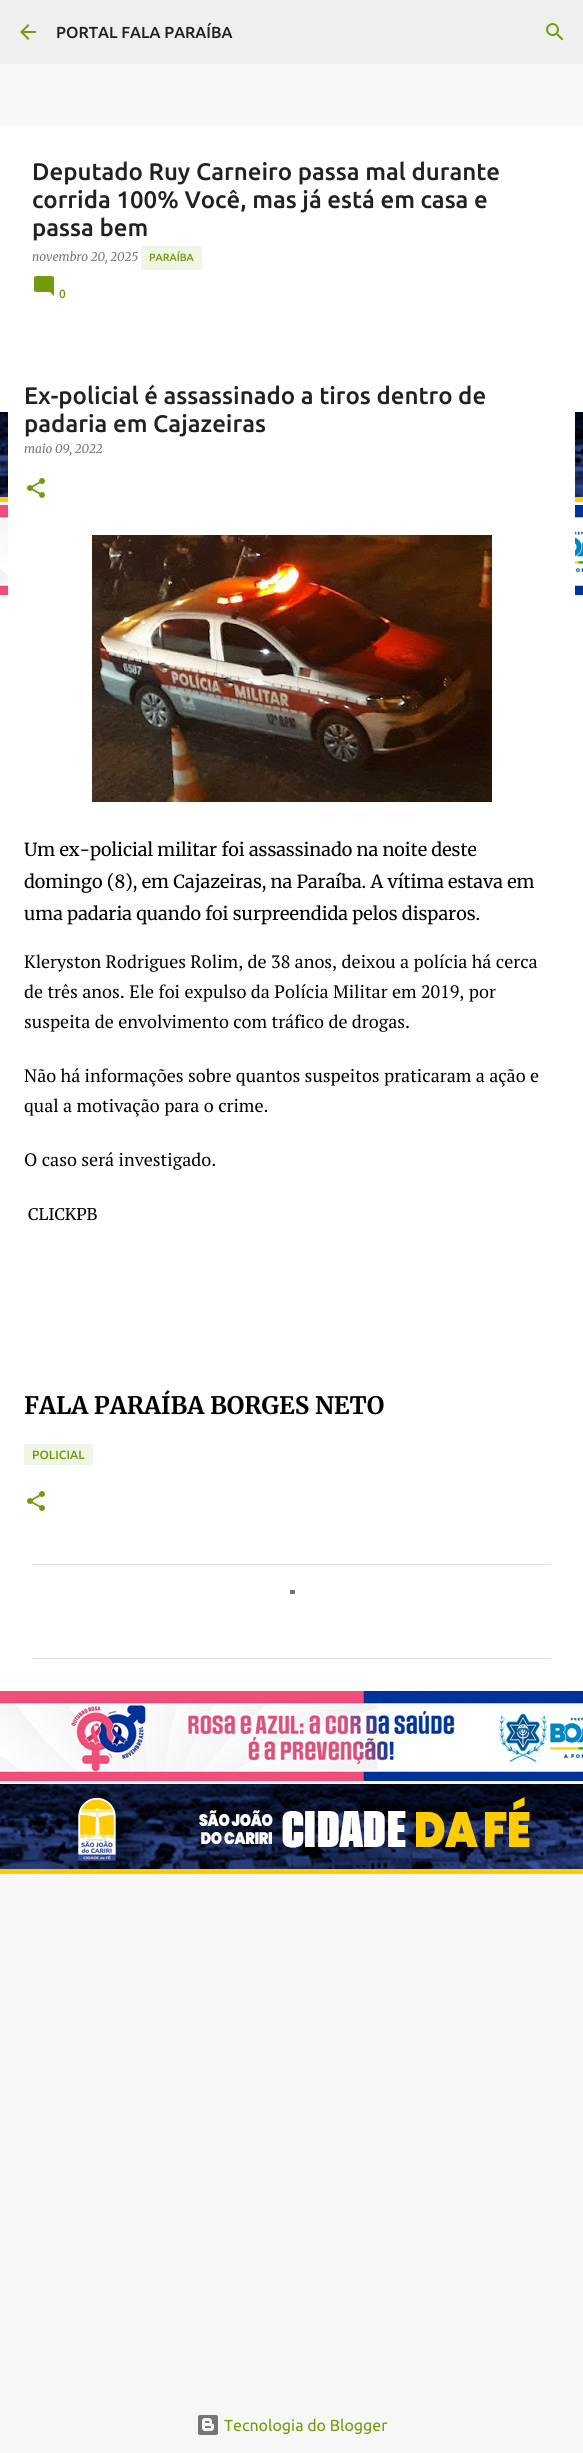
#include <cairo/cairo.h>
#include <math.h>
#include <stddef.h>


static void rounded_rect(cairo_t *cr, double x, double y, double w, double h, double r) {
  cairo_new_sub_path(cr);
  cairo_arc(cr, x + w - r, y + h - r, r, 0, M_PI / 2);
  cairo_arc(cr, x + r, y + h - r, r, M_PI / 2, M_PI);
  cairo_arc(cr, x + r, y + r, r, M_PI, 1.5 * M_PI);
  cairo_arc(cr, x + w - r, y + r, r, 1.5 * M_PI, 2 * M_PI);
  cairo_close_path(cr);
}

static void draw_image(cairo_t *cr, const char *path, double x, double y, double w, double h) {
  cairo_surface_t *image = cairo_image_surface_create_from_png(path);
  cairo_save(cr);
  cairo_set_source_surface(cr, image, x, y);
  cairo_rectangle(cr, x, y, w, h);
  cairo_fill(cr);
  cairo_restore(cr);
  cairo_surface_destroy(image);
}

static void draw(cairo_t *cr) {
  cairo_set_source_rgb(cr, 247 / 255.0, 247 / 255.0, 247 / 255.0);
  cairo_paint(cr);
  cairo_set_source_rgb(cr, 239 / 255.0, 239 / 255.0, 239 / 255.0);
  cairo_rectangle(cr, 0, 0, 583, 64);
  cairo_fill(cr);
  draw_image(cr, "images/1.png", 20, 24, 16, 16);
  draw_image(cr, "images/2.png", 546, 23, 18, 18);
  cairo_set_source_rgb(cr, 1, 1, 1);
  cairo_rectangle(cr, 0, 126, 583, 286);
  cairo_fill(cr);
  cairo_set_source_rgb(cr, 241 / 255.0, 245 / 255.0, 231 / 255.0);
  rounded_rect(cr, 141, 246, 61, 24, 2);
  cairo_fill(cr);
  draw_image(cr, "images/3.png", 34, 276, 20, 20);
  draw_image(cr, "images/4.png", 0, 412, 583, 90);
  draw_image(cr, "images/5.png", 0, 505, 583, 90);
  cairo_set_source_rgb(cr, 1, 1, 1);
  cairo_rectangle(cr, 0, 598, 583, 1093);
  cairo_fill(cr);
  cairo_rectangle(cr, 8, 412, 567, 186);
  cairo_fill(cr);
  draw_image(cr, "images/6.png", 27, 478, 18, 20);
  draw_image(cr, "images/7.png", 92, 535, 400, 267);
  cairo_set_source_rgb(cr, 241 / 255.0, 245 / 255.0, 231 / 255.0);
  rounded_rect(cr, 24, 1444, 69, 21, 2);
  cairo_fill(cr);
  draw_image(cr, "images/6.png", 27, 1491, 18, 20);
  cairo_set_source_rgb(cr, 224 / 255.0, 224 / 255.0, 224 / 255.0);
  cairo_rectangle(cr, 32, 1564, 519, 1);
  cairo_fill(cr);
  cairo_rectangle(cr, 32, 1658, 519, 1);
  cairo_fill(cr);
  draw_image(cr, "images/5.png", 0, 1691, 583, 90);
  draw_image(cr, "images/4.png", 0, 1784, 583, 90);
  draw_image(cr, "images/8.png", 198, 2415, 20, 20);
  cairo_set_source_rgb(cr, 117 / 255.0, 117 / 255.0, 117 / 255.0);
  cairo_rectangle(cr, 290, 1590, 5, 4);
  cairo_fill(cr);
  cairo_select_font_face(cr, "Ubuntu Medium", CAIRO_FONT_SLANT_NORMAL, CAIRO_FONT_WEIGHT_NORMAL);
  cairo_set_font_size(cr, 16);
  cairo_set_source_rgb(cr, 33 / 255.0, 33 / 255.0, 33 / 255.0);
  cairo_move_to(cr, 56, 38);
  cairo_show_text(cr, "PORTAL FALA PARAÍBA");
  cairo_set_font_size(cr, 24);
  cairo_move_to(cr, 32, 180);
  cairo_show_text(cr, "Deputado Ruy Carneiro passa mal durante");
  cairo_move_to(cr, 32, 208);
  cairo_show_text(cr, "corrida 100% Você, mas já está em casa e");
  cairo_move_to(cr, 32, 236);
  cairo_show_text(cr, "passa bem");
  cairo_select_font_face(cr, "Merriweather", CAIRO_FONT_SLANT_ITALIC, CAIRO_FONT_WEIGHT_NORMAL);
  cairo_set_font_size(cr, 12);
  cairo_set_source_rgb(cr, 117 / 255.0, 117 / 255.0, 117 / 255.0);
  cairo_move_to(cr, 32, 261);
  cairo_show_text(cr, "novembro 20, 2025");
  cairo_select_font_face(cr, "Ubuntu Medium", CAIRO_FONT_SLANT_NORMAL, CAIRO_FONT_WEIGHT_NORMAL);
  cairo_set_font_size(cr, 10.5);
  cairo_set_source_rgb(cr, 114 / 255.0, 156 / 255.0, 11 / 255.0);
  cairo_move_to(cr, 149, 261);
  cairo_show_text(cr, "PARAÍBA");
  cairo_set_font_size(cr, 12);
  cairo_move_to(cr, 59, 298);
  cairo_show_text(cr, "0");
  cairo_set_font_size(cr, 24);
  cairo_set_source_rgb(cr, 33 / 255.0, 33 / 255.0, 33 / 255.0);
  cairo_move_to(cr, 24, 404);
  cairo_show_text(cr, "Ex-policial é assassinado a tiros dentro de");
  cairo_move_to(cr, 24, 432);
  cairo_show_text(cr, "padaria em Cajazeiras");
  cairo_select_font_face(cr, "Merriweather", CAIRO_FONT_SLANT_ITALIC, CAIRO_FONT_WEIGHT_NORMAL);
  cairo_set_font_size(cr, 12);
  cairo_set_source_rgb(cr, 117 / 255.0, 117 / 255.0, 117 / 255.0);
  cairo_move_to(cr, 24, 453);
  cairo_show_text(cr, "maio 09, 2022");
  cairo_select_font_face(cr, "Merriweather", CAIRO_FONT_SLANT_NORMAL, CAIRO_FONT_WEIGHT_NORMAL);
  cairo_set_font_size(cr, 18);
  cairo_set_source_rgb(cr, 0, 0, 0);
  cairo_move_to(cr, 24, 856);
  cairo_show_text(cr, "Um ex-policial militar foi assassinado na noite deste");
  cairo_move_to(cr, 24, 888);
  cairo_show_text(cr, "domingo (8), em Cajazeiras, na Paraíba. A vítima estava em");
  cairo_move_to(cr, 24, 920);
  cairo_show_text(cr, "uma padaria quando foi surpreendida pelos disparos.");
  cairo_select_font_face(cr, "PT Serif", CAIRO_FONT_SLANT_NORMAL, CAIRO_FONT_WEIGHT_NORMAL);
  cairo_move_to(cr, 24, 968);
  cairo_show_text(cr, "Kleryston Rodrigues Rolim, de 38 anos, deixou a polícia há cerca");
  cairo_move_to(cr, 24, 998);
  cairo_show_text(cr, "de três anos. Ele foi expulso da Polícia Militar em 2019, por");
  cairo_move_to(cr, 24, 1028);
  cairo_show_text(cr, "suspeita de envolvimento com tráfico de drogas.");
  cairo_move_to(cr, 24, 1082);
  cairo_show_text(cr, "Não há informações sobre quantos suspeitos praticaram a ação e");
  cairo_move_to(cr, 24, 1112);
  cairo_show_text(cr, "qual a motivação para o crime.");
  cairo_move_to(cr, 24, 1166);
  cairo_show_text(cr, "O caso será investigado.");
  cairo_select_font_face(cr, "Merriweather", CAIRO_FONT_SLANT_NORMAL, CAIRO_FONT_WEIGHT_NORMAL);
  cairo_set_font_size(cr, 16);
  cairo_move_to(cr, 28, 1220);
  cairo_show_text(cr, "CLICKPB");
  cairo_select_font_face(cr, "Merriweather", CAIRO_FONT_SLANT_NORMAL, CAIRO_FONT_WEIGHT_BOLD);
  cairo_set_font_size(cr, 24);
  cairo_move_to(cr, 24, 1414);
  cairo_show_text(cr, "FALA PARAÍBA BORGES NETO");
  cairo_select_font_face(cr, "Ubuntu Medium", CAIRO_FONT_SLANT_NORMAL, CAIRO_FONT_WEIGHT_NORMAL);
  cairo_set_font_size(cr, 12);
  cairo_set_source_rgb(cr, 114 / 255.0, 156 / 255.0, 11 / 255.0);
  cairo_move_to(cr, 32, 1459);
  cairo_show_text(cr, "POLICIAL");
  cairo_select_font_face(cr, "Ubuntu", CAIRO_FONT_SLANT_NORMAL, CAIRO_FONT_WEIGHT_NORMAL);
  cairo_set_font_size(cr, 16);
  cairo_move_to(cr, 224, 2431);
  cairo_show_text(cr, "Tecnologia do Blogger");
}

int main(void) {
  cairo_surface_t *surface = cairo_image_surface_create(CAIRO_FORMAT_RGB24, 583, 2453);
  cairo_t *cr = cairo_create(surface);
  cairo_font_options_t *options = cairo_font_options_create();
  cairo_font_options_set_hint_metrics(options, CAIRO_HINT_METRICS_OFF);
  cairo_font_options_set_hint_style(options, CAIRO_HINT_STYLE_NONE);
  cairo_set_font_options(cr, options);
  cairo_set_miter_limit(cr, 4);
  draw(cr);
  cairo_surface_write_to_png(surface, "out.png");
  cairo_font_options_destroy(options);
  cairo_destroy(cr);
  cairo_surface_destroy(surface);
  return 0;
}
